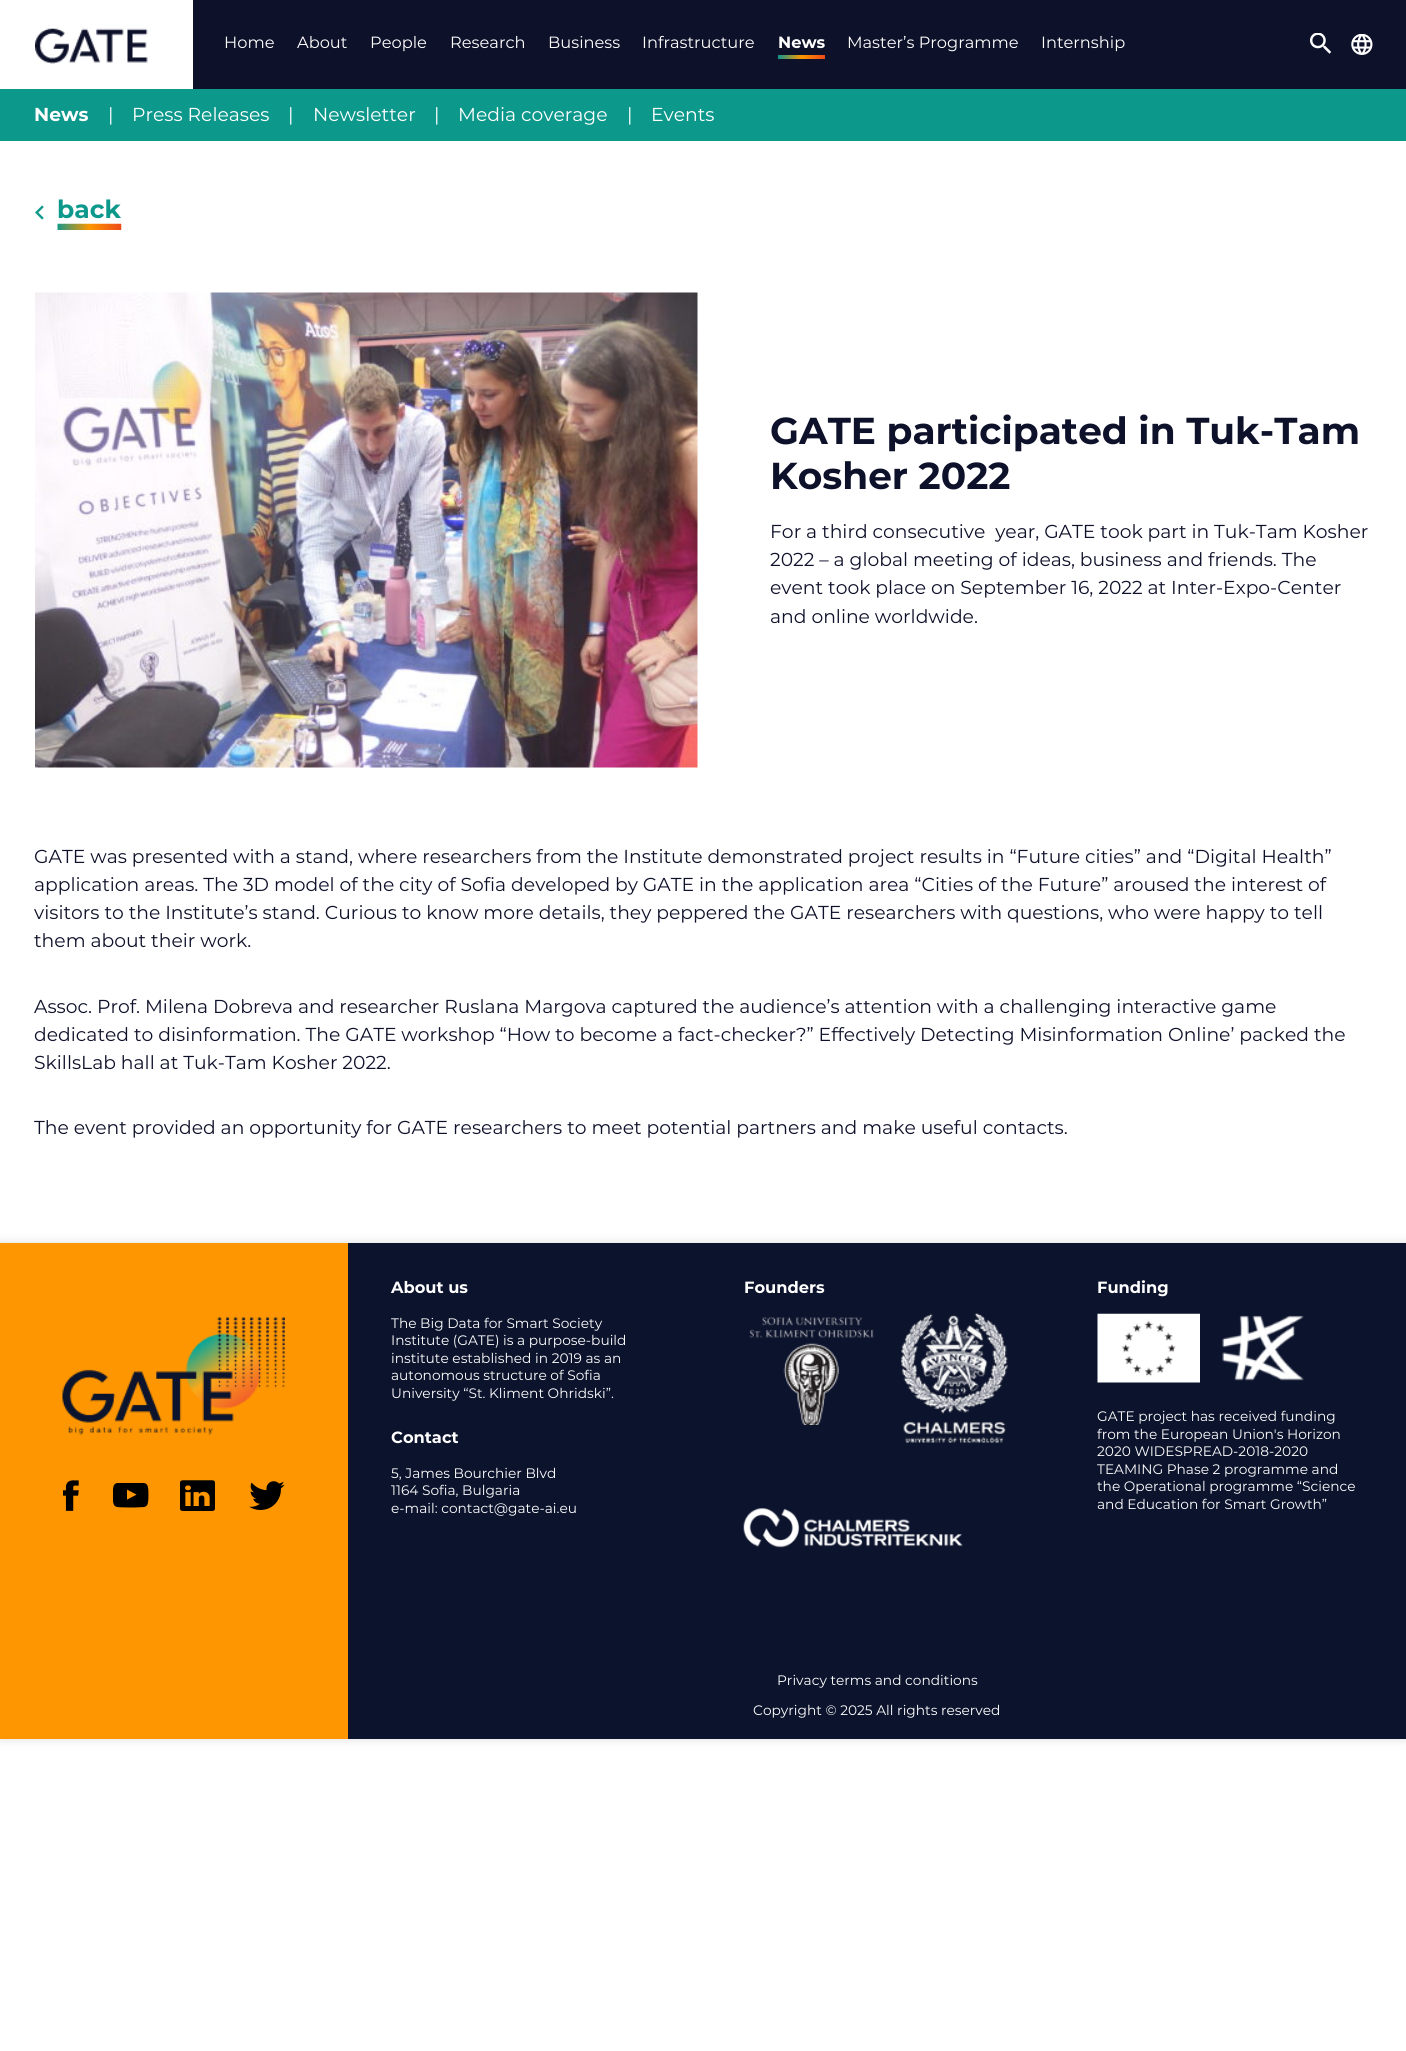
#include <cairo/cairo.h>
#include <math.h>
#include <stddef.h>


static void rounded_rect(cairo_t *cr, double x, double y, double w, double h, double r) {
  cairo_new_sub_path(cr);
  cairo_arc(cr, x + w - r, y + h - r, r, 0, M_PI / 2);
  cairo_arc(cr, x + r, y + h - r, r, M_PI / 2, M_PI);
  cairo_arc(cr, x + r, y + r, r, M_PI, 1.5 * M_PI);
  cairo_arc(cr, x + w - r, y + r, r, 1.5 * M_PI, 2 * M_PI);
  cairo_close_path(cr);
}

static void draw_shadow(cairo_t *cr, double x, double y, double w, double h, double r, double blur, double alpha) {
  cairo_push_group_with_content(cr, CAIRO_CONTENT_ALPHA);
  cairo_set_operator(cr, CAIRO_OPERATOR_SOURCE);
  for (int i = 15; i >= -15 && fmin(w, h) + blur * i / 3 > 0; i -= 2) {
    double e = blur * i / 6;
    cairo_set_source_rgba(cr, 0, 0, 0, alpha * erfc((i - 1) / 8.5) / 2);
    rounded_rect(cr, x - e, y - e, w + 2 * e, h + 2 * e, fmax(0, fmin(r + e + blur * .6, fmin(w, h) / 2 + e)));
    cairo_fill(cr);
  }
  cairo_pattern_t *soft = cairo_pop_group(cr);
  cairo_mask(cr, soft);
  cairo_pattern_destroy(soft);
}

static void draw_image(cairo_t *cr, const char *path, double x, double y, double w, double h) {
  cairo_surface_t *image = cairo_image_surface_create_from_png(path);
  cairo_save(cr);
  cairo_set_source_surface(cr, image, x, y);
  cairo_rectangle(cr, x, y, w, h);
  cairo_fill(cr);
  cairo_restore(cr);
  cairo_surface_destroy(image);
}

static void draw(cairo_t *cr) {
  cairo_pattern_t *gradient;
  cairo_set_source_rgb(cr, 1, 1, 1);
  cairo_paint(cr);
  cairo_set_source_rgb(cr, 14 / 255.0, 17 / 255.0, 42 / 255.0);
  cairo_rectangle(cr, 193, 0, 1213, 89);
  cairo_fill(cr);
  draw_image(cr, "images/1.png", 35, 28, 113, 36);
  gradient = cairo_pattern_create_linear(825, 57, 778, 57);
  cairo_pattern_add_color_stop_rgba(gradient, 0, 237 / 255.0, 72 / 255.0, 27 / 255.0, 1);
  cairo_pattern_add_color_stop_rgba(gradient, 0.5, 253 / 255.0, 150 / 255.0, 0, 1);
  cairo_pattern_add_color_stop_rgba(gradient, 1, 13 / 255.0, 152 / 255.0, 140 / 255.0, 1);
  cairo_set_source(cr, gradient);
  cairo_pattern_destroy(gradient);
  cairo_rectangle(cr, 778, 55, 47, 4);
  cairo_fill(cr);
  draw_image(cr, "images/2.png", 1310, 33, 21, 21);
  draw_image(cr, "images/3.png", 1351, 34, 22, 21);
  cairo_set_source_rgb(cr, 13 / 255.0, 152 / 255.0, 140 / 255.0);
  cairo_rectangle(cr, 0, 89, 1406, 52);
  cairo_fill(cr);
  draw_image(cr, "images/4.png", 35, 205, 9, 15);
  draw_image(cr, "images/5.png", 57, 223, 65, 7);
  draw_image(cr, "images/6.png", 35, 292, 663, 476);
  cairo_set_source_rgb(cr, 221 / 255.0, 221 / 255.0, 221 / 255.0);
  draw_shadow(cr, 0, 1243, 1406, 496, 0, 5, 1);
  cairo_set_source_rgb(cr, 12 / 255.0, 19 / 255.0, 44 / 255.0);
  cairo_rectangle(cr, 348, 1243, 1058, 496);
  cairo_fill(cr);
  cairo_set_source_rgb(cr, 253 / 255.0, 150 / 255.0, 0);
  cairo_rectangle(cr, 0, 1243, 348, 496);
  cairo_fill(cr);
  draw_image(cr, "images/7.png", 62, 1317, 223, 119);
  draw_image(cr, "images/8.png", 63, 1480, 16, 31);
  draw_image(cr, "images/9.png", 113, 1483, 36, 25);
  draw_image(cr, "images/10.png", 180, 1480, 35, 31);
  draw_image(cr, "images/11.png", 249, 1481, 36, 29);
  draw_image(cr, "images/12.png", 749, 1316, 125, 109);
  draw_image(cr, "images/13.png", 901, 1313, 107, 130);
  draw_image(cr, "images/14.png", 743, 1508, 220, 40);
  draw_image(cr, "images/15.png", 1097, 1313, 103, 70);
  draw_image(cr, "images/16.png", 1222, 1315, 82, 66);
  cairo_select_font_face(cr, "Montserrat", CAIRO_FONT_SLANT_NORMAL, CAIRO_FONT_WEIGHT_NORMAL);
  cairo_set_font_size(cr, 16.25);
  cairo_set_source_rgb(cr, 1, 1, 1);
  cairo_move_to(cr, 224, 48);
  cairo_show_text(cr, "Home");
  cairo_move_to(cr, 297, 48);
  cairo_show_text(cr, "About");
  cairo_move_to(cr, 370, 48);
  cairo_show_text(cr, "People");
  cairo_move_to(cr, 450, 48);
  cairo_show_text(cr, "Research");
  cairo_move_to(cr, 548, 48);
  cairo_show_text(cr, "Business");
  cairo_move_to(cr, 642, 48);
  cairo_show_text(cr, "Infrastructure");
  cairo_select_font_face(cr, "Montserrat", CAIRO_FONT_SLANT_NORMAL, CAIRO_FONT_WEIGHT_BOLD);
  cairo_move_to(cr, 778, 48);
  cairo_show_text(cr, "News");
  cairo_select_font_face(cr, "Montserrat", CAIRO_FONT_SLANT_NORMAL, CAIRO_FONT_WEIGHT_NORMAL);
  cairo_move_to(cr, 847, 48);
  cairo_show_text(cr, "Master’s Programme");
  cairo_move_to(cr, 1041, 48);
  cairo_show_text(cr, "Internship");
  cairo_select_font_face(cr, "Montserrat", CAIRO_FONT_SLANT_NORMAL, CAIRO_FONT_WEIGHT_BOLD);
  cairo_set_font_size(cr, 18.75);
  cairo_move_to(cr, 34, 121);
  cairo_show_text(cr, "News");
  cairo_select_font_face(cr, "Montserrat", CAIRO_FONT_SLANT_NORMAL, CAIRO_FONT_WEIGHT_NORMAL);
  cairo_move_to(cr, 108, 121);
  cairo_show_text(cr, "|");
  cairo_move_to(cr, 132, 121);
  cairo_show_text(cr, "Press Releases");
  cairo_move_to(cr, 288, 121);
  cairo_show_text(cr, "|");
  cairo_move_to(cr, 313, 121);
  cairo_show_text(cr, "Newsletter");
  cairo_move_to(cr, 434, 121);
  cairo_show_text(cr, "|");
  cairo_move_to(cr, 458, 121);
  cairo_show_text(cr, "Media coverage");
  cairo_move_to(cr, 627, 121);
  cairo_show_text(cr, "|");
  cairo_move_to(cr, 651, 121);
  cairo_show_text(cr, "Events");
  cairo_select_font_face(cr, "Montserrat", CAIRO_FONT_SLANT_NORMAL, CAIRO_FONT_WEIGHT_BOLD);
  cairo_set_font_size(cr, 25);
  cairo_set_source_rgb(cr, 13 / 255.0, 152 / 255.0, 140 / 255.0);
  cairo_move_to(cr, 57, 218);
  cairo_show_text(cr, "back");
  cairo_set_font_size(cr, 37.5);
  cairo_set_source_rgb(cr, 14 / 255.0, 17 / 255.0, 42 / 255.0);
  cairo_move_to(cr, 770, 444);
  cairo_show_text(cr, "GATE participated in Tuk-Tam");
  cairo_move_to(cr, 770, 489);
  cairo_show_text(cr, "Kosher 2022");
  cairo_select_font_face(cr, "Montserrat", CAIRO_FONT_SLANT_NORMAL, CAIRO_FONT_WEIGHT_NORMAL);
  cairo_set_font_size(cr, 18.75);
  cairo_move_to(cr, 770, 538);
  cairo_show_text(cr, "For a third consecutive  year, GATE took part in Tuk-Tam Kosher");
  cairo_move_to(cr, 770, 566);
  cairo_show_text(cr, "2022 – a global meeting of ideas, business and friends. The");
  cairo_move_to(cr, 770, 594);
  cairo_show_text(cr, "event took place on September 16, 2022 at Inter-Expo-Center");
  cairo_move_to(cr, 770, 623);
  cairo_show_text(cr, "and online worldwide.");
  cairo_move_to(cr, 34, 863);
  cairo_show_text(cr, "GATE was presented with a stand, where researchers from the Institute demonstrated project results in “Future cities” and “Digital Health”");
  cairo_move_to(cr, 34, 891);
  cairo_show_text(cr, "application areas. The 3D model of the city of Sofia developed by GATE in the application area “Cities of the Future” aroused the interest of");
  cairo_move_to(cr, 34, 919);
  cairo_show_text(cr, "visitors to the Institute’s stand. Curious to know more details, they peppered the GATE researchers with questions, who were happy to tell");
  cairo_move_to(cr, 34, 947);
  cairo_show_text(cr, "them about their work.");
  cairo_move_to(cr, 34, 1013);
  cairo_show_text(cr, "Assoc. Prof. Milena Dobreva and researcher Ruslana Margova captured the audience’s attention with a challenging interactive game");
  cairo_move_to(cr, 34, 1041);
  cairo_show_text(cr, "dedicated to disinformation. The GATE workshop “How to become a fact-checker?” Effectively Detecting Misinformation Online’ packed the");
  cairo_move_to(cr, 34, 1069);
  cairo_show_text(cr, "SkillsLab hall at Tuk-Tam Kosher 2022.");
  cairo_move_to(cr, 34, 1134);
  cairo_show_text(cr, "The event provided an opportunity for GATE researchers to meet potential partners and make useful contacts.");
  cairo_select_font_face(cr, "Montserrat", CAIRO_FONT_SLANT_NORMAL, CAIRO_FONT_WEIGHT_BOLD);
  cairo_set_font_size(cr, 16.25);
  cairo_set_source_rgb(cr, 1, 1, 1);
  cairo_move_to(cr, 391, 1293);
  cairo_show_text(cr, "About us");
  cairo_select_font_face(cr, "Montserrat", CAIRO_FONT_SLANT_NORMAL, CAIRO_FONT_WEIGHT_NORMAL);
  cairo_set_font_size(cr, 13.75);
  cairo_move_to(cr, 391, 1328);
  cairo_show_text(cr, "The Big Data for Smart Society");
  cairo_move_to(cr, 391, 1345);
  cairo_show_text(cr, "Institute (GATE) is a purpose-build");
  cairo_move_to(cr, 391, 1363);
  cairo_show_text(cr, "institute established in 2019 as an");
  cairo_move_to(cr, 391, 1380);
  cairo_show_text(cr, "autonomous structure of Sofia");
  cairo_move_to(cr, 391, 1398);
  cairo_show_text(cr, "University “St. Kliment Ohridski”.");
  cairo_select_font_face(cr, "Montserrat", CAIRO_FONT_SLANT_NORMAL, CAIRO_FONT_WEIGHT_BOLD);
  cairo_set_font_size(cr, 16.25);
  cairo_move_to(cr, 391, 1443);
  cairo_show_text(cr, "Contact");
  cairo_select_font_face(cr, "Montserrat", CAIRO_FONT_SLANT_NORMAL, CAIRO_FONT_WEIGHT_NORMAL);
  cairo_set_font_size(cr, 13.75);
  cairo_move_to(cr, 391, 1478);
  cairo_show_text(cr, "5, James Bourchier Blvd");
  cairo_move_to(cr, 391, 1495);
  cairo_show_text(cr, "1164 Sofia, Bulgaria");
  cairo_move_to(cr, 391, 1513);
  cairo_show_text(cr, "e-mail: contact@gate-ai.eu");
  cairo_select_font_face(cr, "Montserrat", CAIRO_FONT_SLANT_NORMAL, CAIRO_FONT_WEIGHT_BOLD);
  cairo_set_font_size(cr, 16.25);
  cairo_move_to(cr, 744, 1293);
  cairo_show_text(cr, "Founders");
  cairo_move_to(cr, 1097, 1293);
  cairo_show_text(cr, "Funding");
  cairo_select_font_face(cr, "Montserrat", CAIRO_FONT_SLANT_NORMAL, CAIRO_FONT_WEIGHT_NORMAL);
  cairo_set_font_size(cr, 13.75);
  cairo_move_to(cr, 1097, 1421);
  cairo_show_text(cr, "GATE project has received funding");
  cairo_move_to(cr, 1097, 1439);
  cairo_show_text(cr, "from the European Union's Horizon");
  cairo_move_to(cr, 1097, 1456);
  cairo_show_text(cr, "2020 WIDESPREAD-2018-2020");
  cairo_move_to(cr, 1097, 1474);
  cairo_show_text(cr, "TEAMING Phase 2 programme and");
  cairo_move_to(cr, 1097, 1491);
  cairo_show_text(cr, "the Operational programme “Science");
  cairo_move_to(cr, 1097, 1509);
  cairo_show_text(cr, "and Education for Smart Growth”");
  cairo_move_to(cr, 777, 1685);
  cairo_show_text(cr, "Privacy terms and conditions");
  cairo_move_to(cr, 753, 1715);
  cairo_show_text(cr, "Copyright © 2025 All rights reserved");
}

int main(void) {
  cairo_surface_t *surface = cairo_image_surface_create(CAIRO_FORMAT_RGB24, 1406, 2051);
  cairo_t *cr = cairo_create(surface);
  cairo_font_options_t *options = cairo_font_options_create();
  cairo_font_options_set_hint_metrics(options, CAIRO_HINT_METRICS_OFF);
  cairo_font_options_set_hint_style(options, CAIRO_HINT_STYLE_NONE);
  cairo_set_font_options(cr, options);
  cairo_set_miter_limit(cr, 4);
  draw(cr);
  cairo_surface_write_to_png(surface, "out.png");
  cairo_font_options_destroy(options);
  cairo_destroy(cr);
  cairo_surface_destroy(surface);
  return 0;
}
